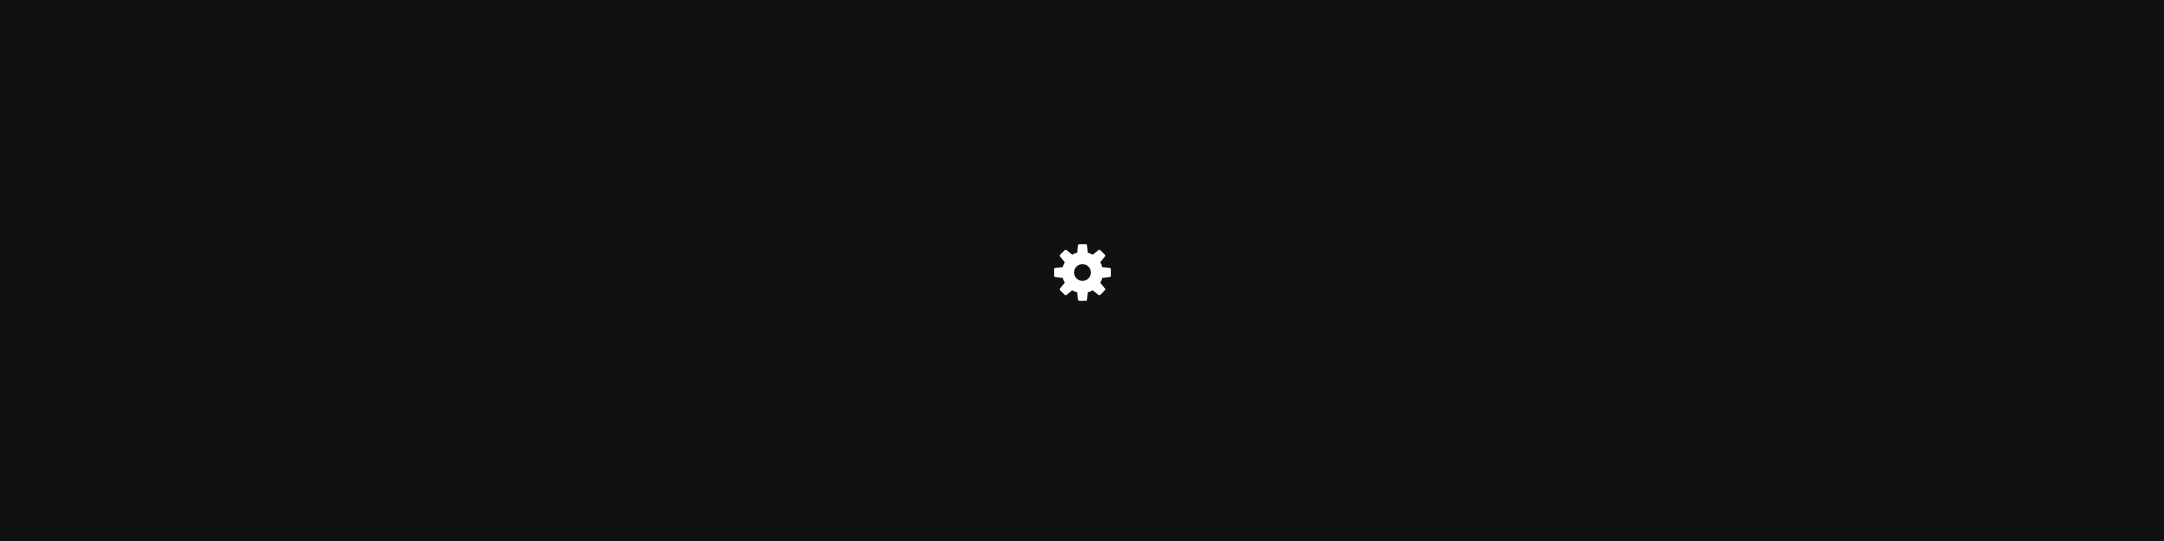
#include <cairo/cairo.h>
#include <math.h>
#include <stddef.h>


static void draw_image(cairo_t *cr, const char *path, double x, double y, double w, double h) {
  cairo_surface_t *image = cairo_image_surface_create_from_png(path);
  cairo_save(cr);
  cairo_set_source_surface(cr, image, x, y);
  cairo_rectangle(cr, x, y, w, h);
  cairo_fill(cr);
  cairo_restore(cr);
  cairo_surface_destroy(image);
}

static void draw(cairo_t *cr) {
  cairo_set_source_rgb(cr, 17 / 255.0, 17 / 255.0, 17 / 255.0);
  cairo_paint(cr);
  draw_image(cr, "images/1.png", 1054, 244, 57, 57);
}

int main(void) {
  cairo_surface_t *surface = cairo_image_surface_create(CAIRO_FORMAT_RGB24, 2164, 541);
  cairo_t *cr = cairo_create(surface);
  cairo_font_options_t *options = cairo_font_options_create();
  cairo_font_options_set_hint_metrics(options, CAIRO_HINT_METRICS_OFF);
  cairo_font_options_set_hint_style(options, CAIRO_HINT_STYLE_NONE);
  cairo_set_font_options(cr, options);
  cairo_set_miter_limit(cr, 4);
  draw(cr);
  cairo_surface_write_to_png(surface, "out.png");
  cairo_font_options_destroy(options);
  cairo_destroy(cr);
  cairo_surface_destroy(surface);
  return 0;
}
